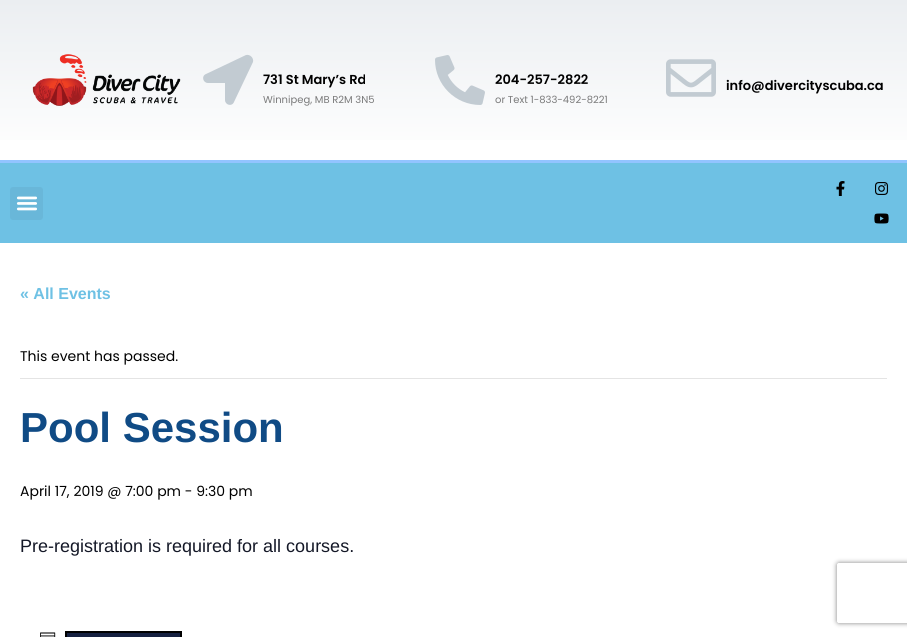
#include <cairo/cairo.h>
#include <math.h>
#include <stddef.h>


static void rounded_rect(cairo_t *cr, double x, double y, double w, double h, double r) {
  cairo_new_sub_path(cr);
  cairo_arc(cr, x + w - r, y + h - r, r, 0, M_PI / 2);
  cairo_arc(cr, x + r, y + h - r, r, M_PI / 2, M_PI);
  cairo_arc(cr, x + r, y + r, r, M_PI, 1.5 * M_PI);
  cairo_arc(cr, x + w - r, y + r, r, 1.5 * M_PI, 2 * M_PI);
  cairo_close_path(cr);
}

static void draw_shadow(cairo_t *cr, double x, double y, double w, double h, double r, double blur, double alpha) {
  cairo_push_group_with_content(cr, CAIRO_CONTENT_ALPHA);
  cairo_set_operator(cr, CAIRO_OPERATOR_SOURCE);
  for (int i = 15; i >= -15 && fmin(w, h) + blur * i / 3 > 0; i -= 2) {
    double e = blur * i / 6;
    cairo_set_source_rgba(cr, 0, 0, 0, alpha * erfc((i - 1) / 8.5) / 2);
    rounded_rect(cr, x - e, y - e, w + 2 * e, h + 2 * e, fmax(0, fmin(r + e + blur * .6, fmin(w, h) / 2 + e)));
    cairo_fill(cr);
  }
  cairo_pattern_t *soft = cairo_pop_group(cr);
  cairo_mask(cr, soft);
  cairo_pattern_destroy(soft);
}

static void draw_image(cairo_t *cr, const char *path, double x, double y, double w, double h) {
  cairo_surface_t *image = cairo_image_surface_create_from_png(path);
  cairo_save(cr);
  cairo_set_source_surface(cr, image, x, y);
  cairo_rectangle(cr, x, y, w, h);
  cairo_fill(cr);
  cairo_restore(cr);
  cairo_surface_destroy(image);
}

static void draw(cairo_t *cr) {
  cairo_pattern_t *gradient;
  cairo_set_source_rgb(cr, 1, 1, 1);
  cairo_paint(cr);
  gradient = cairo_pattern_create_linear(454, 0, 454, 160);
  cairo_pattern_add_color_stop_rgba(gradient, 0, 235 / 255.0, 238 / 255.0, 241 / 255.0, 1);
  cairo_pattern_add_color_stop_rgba(gradient, 1, 1, 1, 1, 1);
  cairo_set_source(cr, gradient);
  cairo_pattern_destroy(gradient);
  cairo_rectangle(cr, 0, 0, 907, 140);
  cairo_fill(cr);
  draw_image(cr, "images/1.png", 32, 54, 149, 52);
  cairo_set_source_rgb(cr, 194 / 255.0, 203 / 255.0, 210 / 255.0);
  cairo_new_path(cr);
  cairo_move_to(cr, 246, 55);
  cairo_line_to(cr, 206, 74);
  cairo_curve_to(cr, 201, 76, 203, 83, 208, 83);
  cairo_line_to(cr, 225, 83);
  cairo_line_to(cr, 225, 100);
  cairo_curve_to(cr, 225, 105, 232, 107, 234, 102);
  cairo_line_to(cr, 253, 62);
  cairo_curve_to(cr, 254, 58, 250, 54, 246, 55);
  cairo_close_path(cr);
  cairo_fill(cr);
  draw_image(cr, "images/2.png", 435, 55, 50, 50);
  draw_image(cr, "images/3.png", 666, 59, 50, 38);
  cairo_set_source_rgb(cr, 110 / 255.0, 193 / 255.0, 228 / 255.0);
  cairo_rectangle(cr, 0, 163, 907, 80);
  cairo_fill(cr);
  cairo_set_source_rgb(cr, 146 / 255.0, 196 / 255.0, 1);
  cairo_rectangle(cr, 0, 160, 907, 3);
  cairo_fill(cr);
  cairo_set_source_rgb(cr, 105 / 255.0, 183 / 255.0, 217 / 255.0);
  rounded_rect(cr, 10, 187, 33, 33, 3);
  cairo_fill(cr);
  draw_image(cr, "images/4.png", 16, 196, 21, 15);
  draw_image(cr, "images/5.png", 836, 181, 9, 15);
  draw_image(cr, "images/6.png", 875, 182, 14, 13);
  draw_image(cr, "images/7.png", 874, 213, 15, 11);
  cairo_set_source_rgb(cr, 228 / 255.0, 228 / 255.0, 228 / 255.0);
  cairo_rectangle(cr, 20, 378, 867, 1);
  cairo_fill(cr);
  draw_image(cr, "images/8.png", 40, 632, 16, 5);
  cairo_set_source_rgb(cr, 21 / 255.0, 32 / 255.0, 64 / 255.0);
  cairo_rectangle(cr, 66, 632, 115, 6);
  cairo_fill_preserve(cr);
  cairo_set_source_rgb(cr, 0, 0, 0);
  cairo_stroke(cr);
  cairo_save(cr);
  cairo_set_fill_rule(cr, CAIRO_FILL_RULE_EVEN_ODD);
  cairo_new_path(cr);
  cairo_move_to(cr, 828, 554);
  cairo_line_to(cr, 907, 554);
  cairo_line_to(cr, 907, 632);
  cairo_line_to(cr, 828, 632);
  cairo_close_path(cr);
  cairo_move_to(cr, 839, 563);
  cairo_line_to(cr, 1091, 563);
  cairo_curve_to(cr, 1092, 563, 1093, 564, 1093, 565);
  cairo_line_to(cr, 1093, 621);
  cairo_curve_to(cr, 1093, 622, 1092, 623, 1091, 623);
  cairo_line_to(cr, 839, 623);
  cairo_curve_to(cr, 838, 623, 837, 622, 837, 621);
  cairo_line_to(cr, 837, 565);
  cairo_curve_to(cr, 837, 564, 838, 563, 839, 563);
  cairo_close_path(cr);
  cairo_clip(cr);
  cairo_set_source_rgb(cr, 128 / 255.0, 128 / 255.0, 128 / 255.0);
  draw_shadow(cr, 837, 563, 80, 60, 2, 2.5, 1);
  cairo_restore(cr);
  cairo_select_font_face(cr, "Poppins SemiBold", CAIRO_FONT_SLANT_NORMAL, CAIRO_FONT_WEIGHT_NORMAL);
  cairo_set_font_size(cr, 13);
  cairo_move_to(cr, 263, 84);
  cairo_show_text(cr, "731 St Mary’s Rd");
  cairo_select_font_face(cr, "Poppins", CAIRO_FONT_SLANT_NORMAL, CAIRO_FONT_WEIGHT_NORMAL);
  cairo_set_font_size(cr, 10);
  cairo_set_source_rgb(cr, 122 / 255.0, 122 / 255.0, 122 / 255.0);
  cairo_move_to(cr, 263, 103);
  cairo_show_text(cr, "Winnipeg, MB R2M 3N5");
  cairo_select_font_face(cr, "Poppins SemiBold", CAIRO_FONT_SLANT_NORMAL, CAIRO_FONT_WEIGHT_NORMAL);
  cairo_set_font_size(cr, 13);
  cairo_set_source_rgb(cr, 0, 0, 0);
  cairo_move_to(cr, 495, 84);
  cairo_show_text(cr, "204-257-2822");
  cairo_select_font_face(cr, "Poppins", CAIRO_FONT_SLANT_NORMAL, CAIRO_FONT_WEIGHT_NORMAL);
  cairo_set_font_size(cr, 10);
  cairo_set_source_rgb(cr, 122 / 255.0, 122 / 255.0, 122 / 255.0);
  cairo_move_to(cr, 495, 103);
  cairo_show_text(cr, "or Text 1-833-492-8221");
  cairo_select_font_face(cr, "Poppins SemiBold", CAIRO_FONT_SLANT_NORMAL, CAIRO_FONT_WEIGHT_NORMAL);
  cairo_set_font_size(cr, 13);
  cairo_set_source_rgb(cr, 0, 0, 0);
  cairo_move_to(cr, 726, 90);
  cairo_show_text(cr, "info@divercityscuba.ca");
  cairo_select_font_face(cr, "Liberation Sans", CAIRO_FONT_SLANT_NORMAL, CAIRO_FONT_WEIGHT_BOLD);
  cairo_set_font_size(cr, 16);
  cairo_set_source_rgb(cr, 110 / 255.0, 193 / 255.0, 228 / 255.0);
  cairo_move_to(cr, 20, 299);
  cairo_show_text(cr, "« All Events");
  cairo_select_font_face(cr, "Poppins", CAIRO_FONT_SLANT_NORMAL, CAIRO_FONT_WEIGHT_NORMAL);
  cairo_set_font_size(cr, 14);
  cairo_set_source_rgb(cr, 0, 0, 0);
  cairo_move_to(cr, 20, 361);
  cairo_show_text(cr, "This event has passed.");
  cairo_select_font_face(cr, "Liberation Sans", CAIRO_FONT_SLANT_NORMAL, CAIRO_FONT_WEIGHT_BOLD);
  cairo_set_font_size(cr, 42);
  cairo_set_source_rgb(cr, 16 / 255.0, 75 / 255.0, 133 / 255.0);
  cairo_move_to(cr, 20, 442);
  cairo_show_text(cr, "Pool Session");
  cairo_select_font_face(cr, "Poppins", CAIRO_FONT_SLANT_NORMAL, CAIRO_FONT_WEIGHT_NORMAL);
  cairo_set_font_size(cr, 14);
  cairo_set_source_rgb(cr, 0, 0, 0);
  cairo_move_to(cr, 20, 496);
  cairo_show_text(cr, "April 17, 2019 @ 7:00 pm - 9:30 pm");
  cairo_select_font_face(cr, "Liberation Sans", CAIRO_FONT_SLANT_NORMAL, CAIRO_FONT_WEIGHT_NORMAL);
  cairo_set_font_size(cr, 18);
  cairo_set_source_rgb(cr, 20 / 255.0, 24 / 255.0, 39 / 255.0);
  cairo_move_to(cr, 20, 552);
  cairo_show_text(cr, "Pre-registration is required for all courses.");
}

int main(void) {
  cairo_surface_t *surface = cairo_image_surface_create(CAIRO_FORMAT_RGB24, 907, 637);
  cairo_t *cr = cairo_create(surface);
  cairo_font_options_t *options = cairo_font_options_create();
  cairo_font_options_set_hint_metrics(options, CAIRO_HINT_METRICS_OFF);
  cairo_font_options_set_hint_style(options, CAIRO_HINT_STYLE_NONE);
  cairo_set_font_options(cr, options);
  cairo_set_miter_limit(cr, 4);
  draw(cr);
  cairo_surface_write_to_png(surface, "out.png");
  cairo_font_options_destroy(options);
  cairo_destroy(cr);
  cairo_surface_destroy(surface);
  return 0;
}
